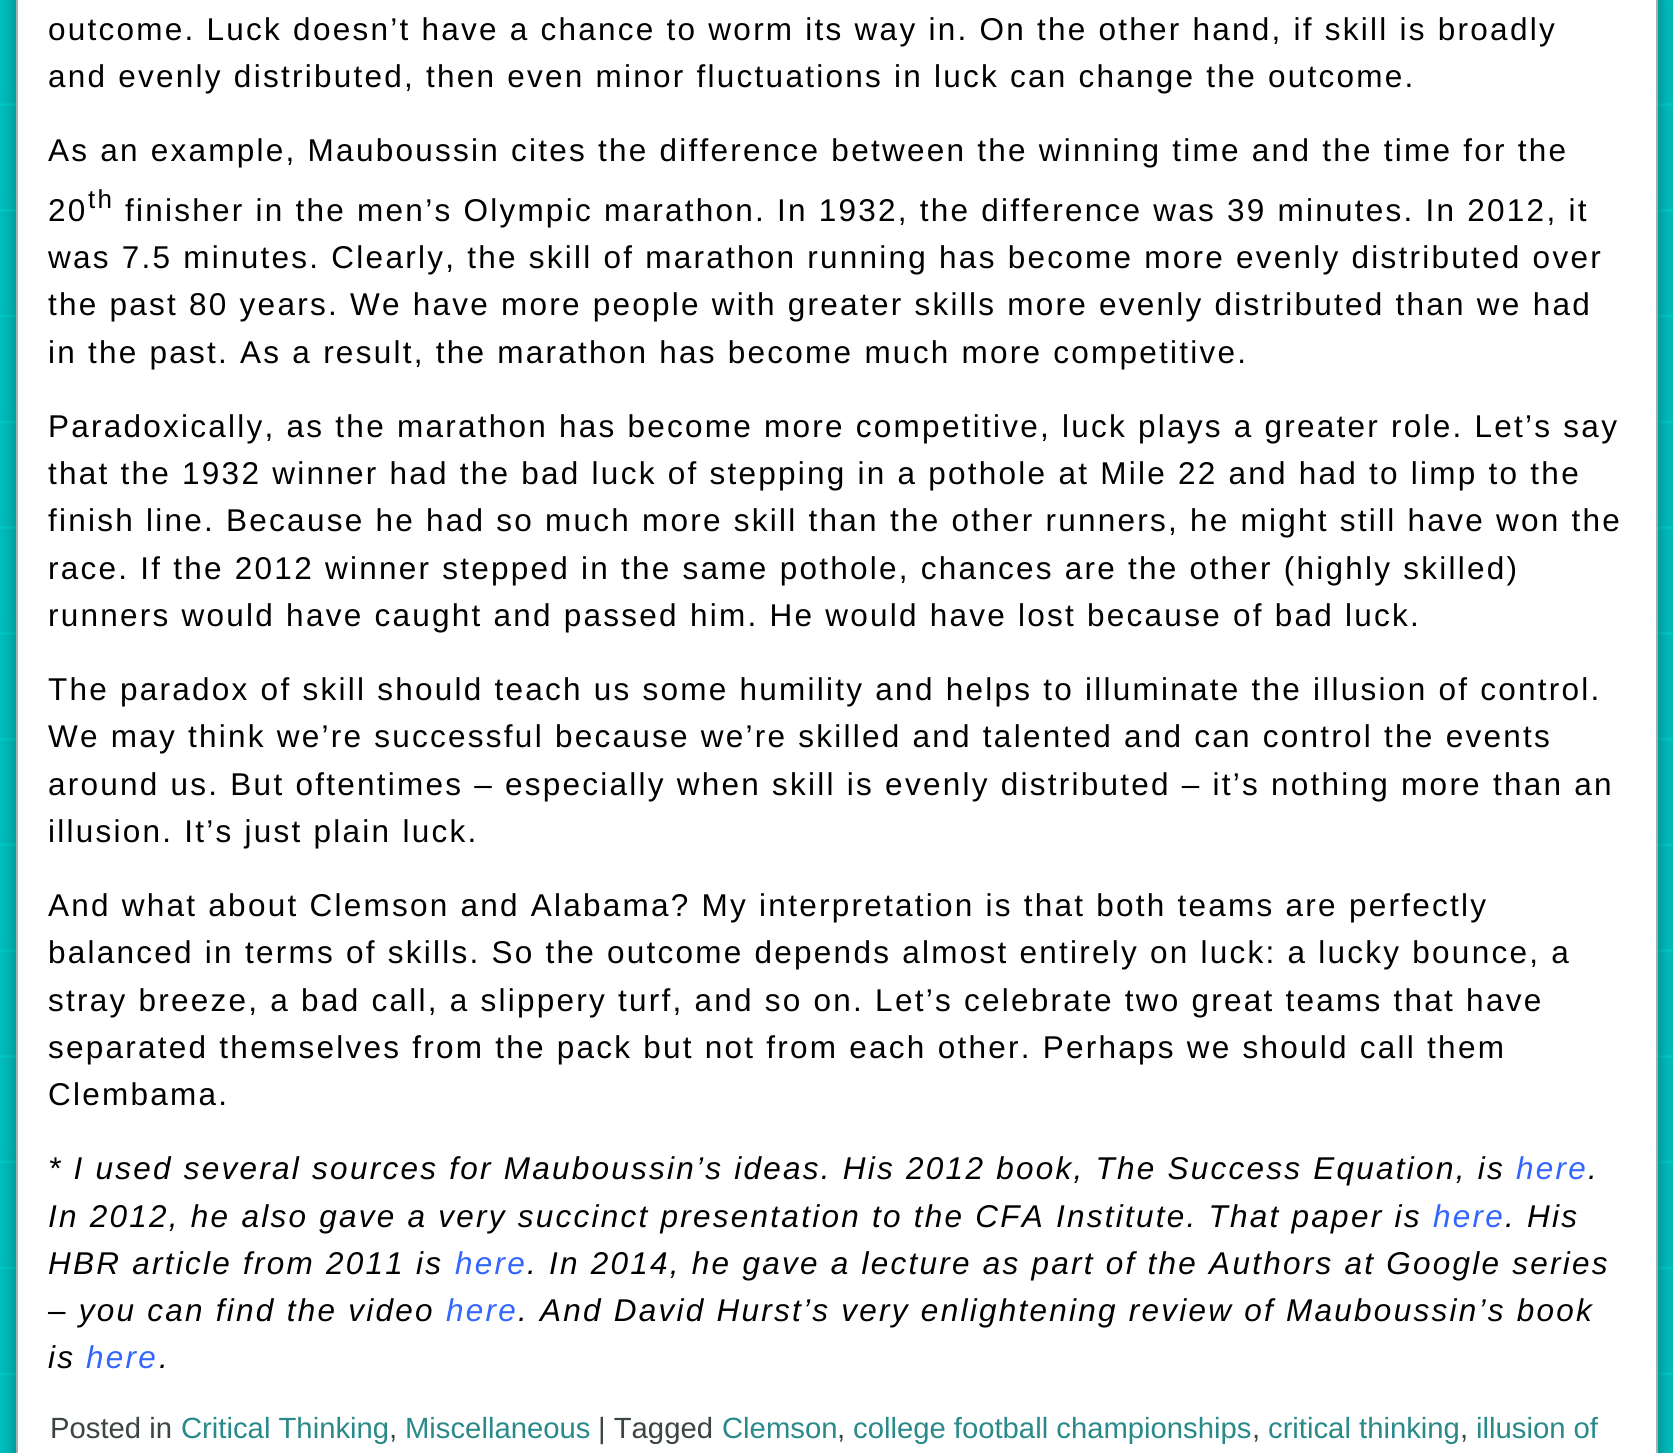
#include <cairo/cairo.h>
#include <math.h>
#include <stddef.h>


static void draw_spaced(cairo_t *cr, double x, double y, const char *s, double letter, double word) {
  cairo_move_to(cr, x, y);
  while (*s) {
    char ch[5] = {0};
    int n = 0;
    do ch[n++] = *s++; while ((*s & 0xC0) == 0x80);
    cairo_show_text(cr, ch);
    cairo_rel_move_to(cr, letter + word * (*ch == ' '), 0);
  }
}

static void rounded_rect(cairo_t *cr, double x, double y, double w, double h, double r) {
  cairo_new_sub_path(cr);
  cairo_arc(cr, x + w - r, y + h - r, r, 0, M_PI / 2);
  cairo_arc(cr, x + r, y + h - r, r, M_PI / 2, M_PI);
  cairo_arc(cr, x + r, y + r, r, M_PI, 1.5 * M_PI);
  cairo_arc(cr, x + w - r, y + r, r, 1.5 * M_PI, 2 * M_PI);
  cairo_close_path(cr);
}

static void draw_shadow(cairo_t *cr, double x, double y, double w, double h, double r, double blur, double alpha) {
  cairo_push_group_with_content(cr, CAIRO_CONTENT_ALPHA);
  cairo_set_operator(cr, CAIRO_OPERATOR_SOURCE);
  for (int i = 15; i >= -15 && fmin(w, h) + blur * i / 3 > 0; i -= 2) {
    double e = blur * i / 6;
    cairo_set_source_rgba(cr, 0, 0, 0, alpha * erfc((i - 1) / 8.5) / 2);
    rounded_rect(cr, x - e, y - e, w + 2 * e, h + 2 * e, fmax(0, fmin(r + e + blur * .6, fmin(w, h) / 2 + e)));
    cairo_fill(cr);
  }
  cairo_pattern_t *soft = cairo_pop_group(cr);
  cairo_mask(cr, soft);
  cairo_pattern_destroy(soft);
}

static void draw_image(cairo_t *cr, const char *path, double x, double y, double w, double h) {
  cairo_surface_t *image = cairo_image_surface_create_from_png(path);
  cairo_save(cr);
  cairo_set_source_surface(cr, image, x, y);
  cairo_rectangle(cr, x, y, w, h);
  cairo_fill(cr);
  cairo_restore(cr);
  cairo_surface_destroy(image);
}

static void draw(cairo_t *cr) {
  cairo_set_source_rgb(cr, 1, 1, 1);
  cairo_paint(cr);
  draw_image(cr, "images/1.png", 0, 0, 1673, 1453);
  cairo_set_source_rgb(cr, 0, 0, 0);
  draw_shadow(cr, 11, -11, 1652, 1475, 0, 3.5, 0.15);
  cairo_set_source_rgb(cr, 1, 1, 1);
  cairo_rectangle(cr, 18, 0, 1638, 1453);
  cairo_fill(cr);
  cairo_set_source_rgb(cr, 164 / 255.0, 178 / 255.0, 174 / 255.0);
  cairo_rectangle(cr, 1656, 0, 2, 1453);
  cairo_fill(cr);
  cairo_rectangle(cr, 16, 0, 2, 1453);
  cairo_fill(cr);
  cairo_select_font_face(cr, "Liberation Sans", CAIRO_FONT_SLANT_NORMAL, CAIRO_FONT_WEIGHT_NORMAL);
  cairo_set_font_size(cr, 31.5);
  cairo_set_source_rgb(cr, 0, 0, 0);
  draw_spaced(cr, 48, 40, "outcome. Luck doesn’t have a chance to worm its way in. On the other hand, if skill is broadly", 2.25, 0);
  draw_spaced(cr, 48, 87, "and evenly distributed, then even minor fluctuations in luck can change the outcome.", 2.25, 0);
  draw_spaced(cr, 48, 161, "As an example, Mauboussin cites the difference between the winning time and the time for the", 2.25, 0);
  draw_spaced(cr, 48, 221, "20", 2.25, 0);
  cairo_set_font_size(cr, 26);
  draw_spaced(cr, 88, 208, "th", 2.25, 0);
  cairo_set_font_size(cr, 31.5);
  draw_spaced(cr, 125, 221, "finisher in the men’s Olympic marathon. In 1932, the difference was 39 minutes. In 2012, it", 2.25, 0);
  draw_spaced(cr, 48, 268, "was 7.5 minutes. Clearly, the skill of marathon running has become more evenly distributed over", 2.25, 0);
  draw_spaced(cr, 48, 315, "the past 80 years. We have more people with greater skills more evenly distributed than we had", 2.25, 0);
  draw_spaced(cr, 48, 363, "in the past. As a result, the marathon has become much more competitive.", 2.25, 0);
  draw_spaced(cr, 48, 437, "Paradoxically, as the marathon has become more competitive, luck plays a greater role. Let’s say", 2.25, 0);
  draw_spaced(cr, 48, 484, "that the 1932 winner had the bad luck of stepping in a pothole at Mile 22 and had to limp to the", 2.25, 0);
  draw_spaced(cr, 48, 531, "finish line. Because he had so much more skill than the other runners, he might still have won the", 2.25, 0);
  draw_spaced(cr, 48, 579, "race. If the 2012 winner stepped in the same pothole, chances are the other (highly skilled)", 2.25, 0);
  draw_spaced(cr, 48, 626, "runners would have caught and passed him. He would have lost because of bad luck.", 2.25, 0);
  draw_spaced(cr, 48, 700, "The paradox of skill should teach us some humility and helps to illuminate the illusion of control.", 2.25, 0);
  draw_spaced(cr, 48, 747, "We may think we’re successful because we’re skilled and talented and can control the events", 2.25, 0);
  draw_spaced(cr, 48, 795, "around us. But oftentimes – especially when skill is evenly distributed – it’s nothing more than an", 2.25, 0);
  draw_spaced(cr, 48, 842, "illusion. It’s just plain luck.", 2.25, 0);
  draw_spaced(cr, 48, 916, "And what about Clemson and Alabama? My interpretation is that both teams are perfectly", 2.25, 0);
  draw_spaced(cr, 48, 963, "balanced in terms of skills. So the outcome depends almost entirely on luck: a lucky bounce, a", 2.25, 0);
  draw_spaced(cr, 48, 1011, "stray breeze, a bad call, a slippery turf, and so on. Let’s celebrate two great teams that have", 2.25, 0);
  draw_spaced(cr, 48, 1058, "separated themselves from the pack but not from each other. Perhaps we should call them", 2.25, 0);
  draw_spaced(cr, 48, 1105, "Clembama.", 2.25, 0);
  cairo_select_font_face(cr, "Liberation Sans", CAIRO_FONT_SLANT_ITALIC, CAIRO_FONT_WEIGHT_NORMAL);
  draw_spaced(cr, 48, 1179, "* I used several sources for Mauboussin’s ideas. His 2012 book, The Success Equation, is", 2.25, 0);
  cairo_set_source_rgb(cr, 51 / 255.0, 102 / 255.0, 1);
  draw_spaced(cr, 1516, 1179, "here", 2.25, 0);
  cairo_set_source_rgb(cr, 0, 0, 0);
  draw_spaced(cr, 1588, 1179, ".", 2.25, 0);
  draw_spaced(cr, 48, 1227, "In 2012, he also gave a very succinct presentation to the CFA Institute. That paper is", 2.25, 0);
  cairo_set_source_rgb(cr, 51 / 255.0, 102 / 255.0, 1);
  draw_spaced(cr, 1433, 1227, "here", 2.25, 0);
  cairo_set_source_rgb(cr, 0, 0, 0);
  draw_spaced(cr, 1505, 1227, ". His", 2.25, 0);
  draw_spaced(cr, 48, 1274, "HBR article from 2011 is", 2.25, 0);
  cairo_set_source_rgb(cr, 51 / 255.0, 102 / 255.0, 1);
  draw_spaced(cr, 455, 1274, "here", 2.25, 0);
  cairo_set_source_rgb(cr, 0, 0, 0);
  draw_spaced(cr, 527, 1274, ". In 2014, he gave a lecture as part of the Authors at Google series", 2.25, 0);
  draw_spaced(cr, 48, 1321, "– you can find the video", 2.25, 0);
  cairo_set_source_rgb(cr, 51 / 255.0, 102 / 255.0, 1);
  draw_spaced(cr, 446, 1321, "here", 2.25, 0);
  cairo_set_source_rgb(cr, 0, 0, 0);
  draw_spaced(cr, 518, 1321, ". And David Hurst’s very enlightening review of Mauboussin’s book", 2.25, 0);
  draw_spaced(cr, 48, 1368, "is", 2.25, 0);
  cairo_set_source_rgb(cr, 51 / 255.0, 102 / 255.0, 1);
  draw_spaced(cr, 86, 1368, "here", 2.25, 0);
  cairo_set_source_rgb(cr, 0, 0, 0);
  draw_spaced(cr, 159, 1368, ".", 2.25, 0);
  cairo_select_font_face(cr, "Liberation Sans", CAIRO_FONT_SLANT_NORMAL, CAIRO_FONT_WEIGHT_NORMAL);
  cairo_set_font_size(cr, 29.25);
  cairo_set_source_rgb(cr, 59 / 255.0, 69 / 255.0, 66 / 255.0);
  cairo_move_to(cr, 50, 1438);
  cairo_show_text(cr, "Posted in");
  cairo_set_source_rgb(cr, 42 / 255.0, 137 / 255.0, 137 / 255.0);
  cairo_move_to(cr, 181, 1438);
  cairo_show_text(cr, "Critical Thinking");
  cairo_set_source_rgb(cr, 59 / 255.0, 69 / 255.0, 66 / 255.0);
  cairo_move_to(cr, 389, 1438);
  cairo_show_text(cr, ",");
  cairo_set_source_rgb(cr, 42 / 255.0, 137 / 255.0, 137 / 255.0);
  cairo_move_to(cr, 405, 1438);
  cairo_show_text(cr, "Miscellaneous");
  cairo_set_source_rgb(cr, 59 / 255.0, 69 / 255.0, 66 / 255.0);
  cairo_move_to(cr, 598, 1438);
  cairo_show_text(cr, "| Tagged");
  cairo_set_source_rgb(cr, 42 / 255.0, 137 / 255.0, 137 / 255.0);
  cairo_move_to(cr, 722, 1438);
  cairo_show_text(cr, "Clemson");
  cairo_set_source_rgb(cr, 59 / 255.0, 69 / 255.0, 66 / 255.0);
  cairo_move_to(cr, 837, 1438);
  cairo_show_text(cr, ",");
  cairo_set_source_rgb(cr, 42 / 255.0, 137 / 255.0, 137 / 255.0);
  cairo_move_to(cr, 853, 1438);
  cairo_show_text(cr, "college football championships");
  cairo_set_source_rgb(cr, 59 / 255.0, 69 / 255.0, 66 / 255.0);
  cairo_move_to(cr, 1252, 1438);
  cairo_show_text(cr, ",");
  cairo_set_source_rgb(cr, 42 / 255.0, 137 / 255.0, 137 / 255.0);
  cairo_move_to(cr, 1268, 1438);
  cairo_show_text(cr, "critical thinking");
  cairo_set_source_rgb(cr, 59 / 255.0, 69 / 255.0, 66 / 255.0);
  cairo_move_to(cr, 1460, 1438);
  cairo_show_text(cr, ",");
  cairo_set_source_rgb(cr, 42 / 255.0, 137 / 255.0, 137 / 255.0);
  cairo_move_to(cr, 1476, 1438);
  cairo_show_text(cr, "illusion of");
}

int main(void) {
  cairo_surface_t *surface = cairo_image_surface_create(CAIRO_FORMAT_RGB24, 1673, 1453);
  cairo_t *cr = cairo_create(surface);
  cairo_font_options_t *options = cairo_font_options_create();
  cairo_font_options_set_hint_metrics(options, CAIRO_HINT_METRICS_OFF);
  cairo_font_options_set_hint_style(options, CAIRO_HINT_STYLE_NONE);
  cairo_set_font_options(cr, options);
  cairo_set_miter_limit(cr, 4);
  draw(cr);
  cairo_surface_write_to_png(surface, "out.png");
  cairo_font_options_destroy(options);
  cairo_destroy(cr);
  cairo_surface_destroy(surface);
  return 0;
}
